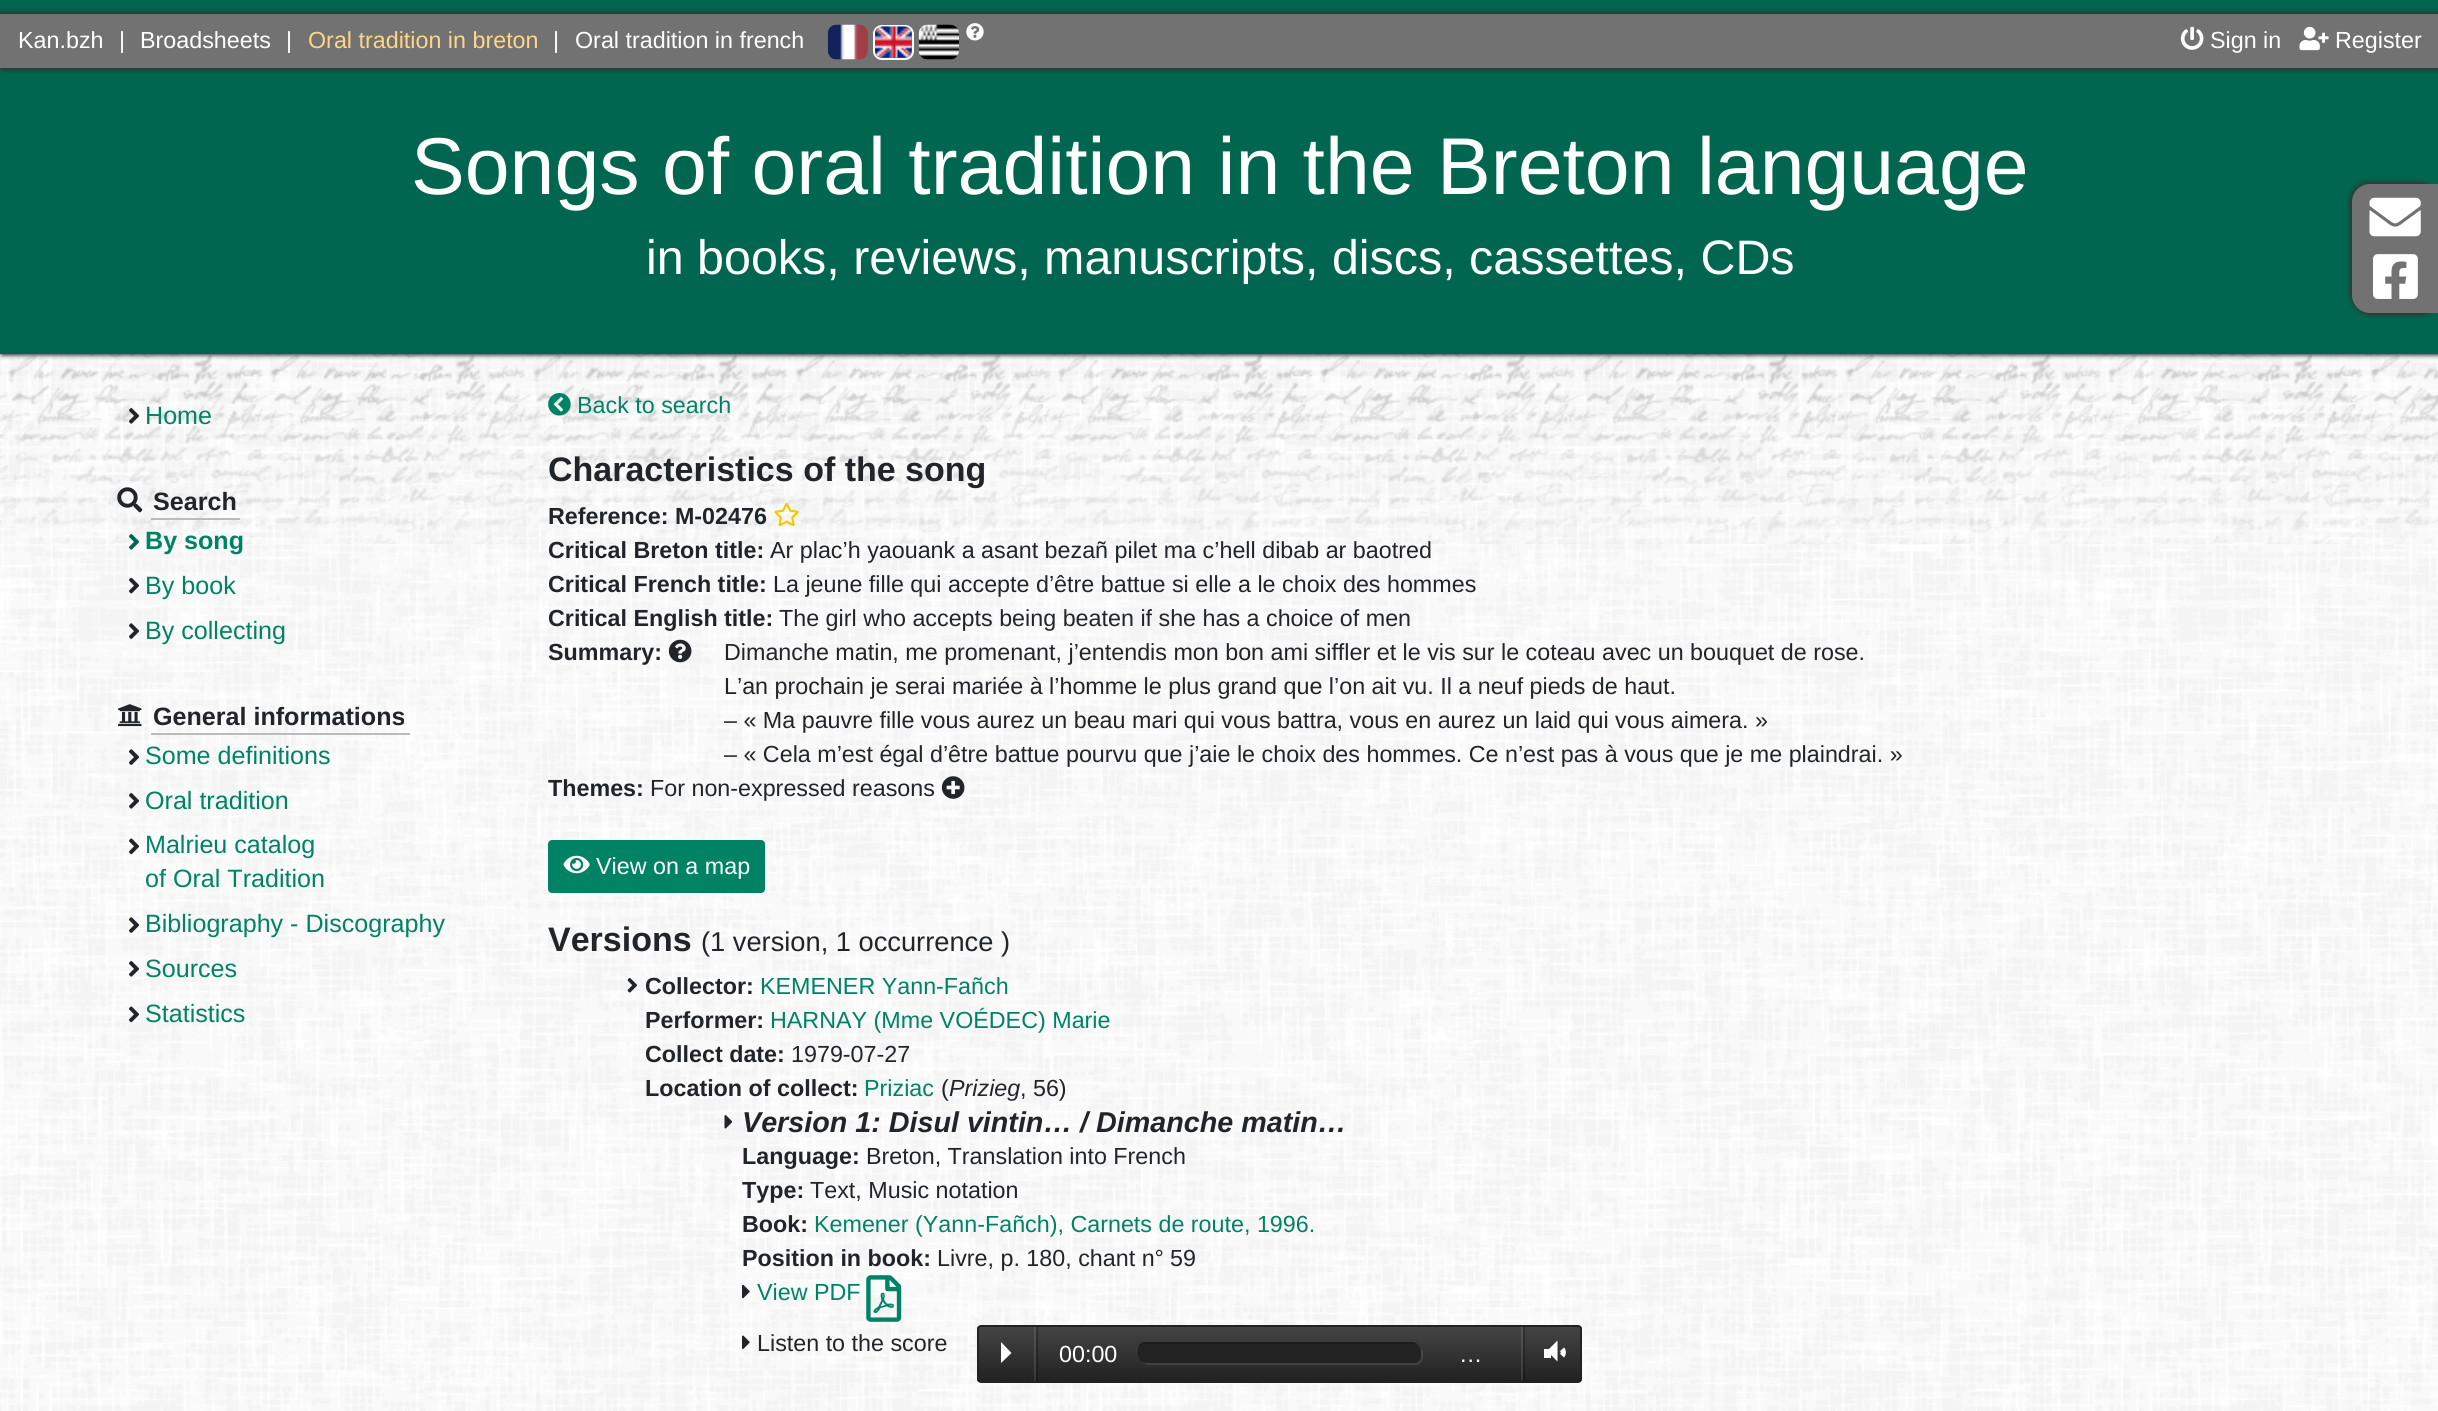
#include <cairo/cairo.h>
#include <math.h>
#include <stddef.h>


static void rounded_rect(cairo_t *cr, double x, double y, double w, double h, double r) {
  cairo_new_sub_path(cr);
  cairo_arc(cr, x + w - r, y + h - r, r, 0, M_PI / 2);
  cairo_arc(cr, x + r, y + h - r, r, M_PI / 2, M_PI);
  cairo_arc(cr, x + r, y + r, r, M_PI, 1.5 * M_PI);
  cairo_arc(cr, x + w - r, y + r, r, 1.5 * M_PI, 2 * M_PI);
  cairo_close_path(cr);
}

static void draw_shadow(cairo_t *cr, double x, double y, double w, double h, double r, double blur, double alpha) {
  cairo_push_group_with_content(cr, CAIRO_CONTENT_ALPHA);
  cairo_set_operator(cr, CAIRO_OPERATOR_SOURCE);
  for (int i = 15; i >= -15 && fmin(w, h) + blur * i / 3 > 0; i -= 2) {
    double e = blur * i / 6;
    cairo_set_source_rgba(cr, 0, 0, 0, alpha * erfc((i - 1) / 8.5) / 2);
    rounded_rect(cr, x - e, y - e, w + 2 * e, h + 2 * e, fmax(0, fmin(r + e + blur * .6, fmin(w, h) / 2 + e)));
    cairo_fill(cr);
  }
  cairo_pattern_t *soft = cairo_pop_group(cr);
  cairo_mask(cr, soft);
  cairo_pattern_destroy(soft);
}

static void draw_image(cairo_t *cr, const char *path, double x, double y, double w, double h) {
  cairo_surface_t *image = cairo_image_surface_create_from_png(path);
  cairo_save(cr);
  cairo_set_source_surface(cr, image, x, y);
  cairo_rectangle(cr, x, y, w, h);
  cairo_fill(cr);
  cairo_restore(cr);
  cairo_surface_destroy(image);
}

static void draw(cairo_t *cr) {
  cairo_pattern_t *gradient;
  cairo_set_source_rgb(cr, 1, 1, 1);
  cairo_paint(cr);
  draw_image(cr, "images/1.png", 0, 354, 2438, 1057);
  draw_image(cr, "images/2.png", 0, 354, 2438, 190);
  cairo_set_source_rgb(cr, 0, 102 / 255.0, 79 / 255.0);
  cairo_rectangle(cr, 0, 0, 2438, 354);
  cairo_fill(cr);
  cairo_set_source_rgb(cr, 51 / 255.0, 51 / 255.0, 51 / 255.0);
  draw_shadow(cr, -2, 12, 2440, 55, 0, 2.5, 1);
  draw_shadow(cr, 2, 16, 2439, 54, 0, 2.5, 1);
  cairo_save(cr);
  cairo_set_fill_rule(cr, CAIRO_FILL_RULE_EVEN_ODD);
  cairo_new_path(cr);
  cairo_move_to(cr, 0, 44);
  cairo_line_to(cr, 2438, 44);
  cairo_line_to(cr, 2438, 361);
  cairo_line_to(cr, 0, 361);
  cairo_close_path(cr);
  cairo_move_to(cr, 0, 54);
  cairo_line_to(cr, 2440, 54);
  cairo_line_to(cr, 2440, 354);
  cairo_line_to(cr, 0, 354);
  cairo_close_path(cr);
  cairo_clip(cr);
  draw_shadow(cr, -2, 53, 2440, 299, 0, 2.5, 1);
  cairo_restore(cr);
  cairo_save(cr);
  cairo_set_fill_rule(cr, CAIRO_FILL_RULE_EVEN_ODD);
  cairo_new_path(cr);
  cairo_move_to(cr, 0, 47);
  cairo_line_to(cr, 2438, 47);
  cairo_line_to(cr, 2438, 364);
  cairo_line_to(cr, 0, 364);
  cairo_close_path(cr);
  cairo_move_to(cr, 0, 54);
  cairo_line_to(cr, 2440, 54);
  cairo_line_to(cr, 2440, 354);
  cairo_line_to(cr, 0, 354);
  cairo_close_path(cr);
  cairo_clip(cr);
  draw_shadow(cr, 2, 56, 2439, 299, 0, 2.5, 1);
  cairo_restore(cr);
  cairo_set_source_rgb(cr, 114 / 255.0, 114 / 255.0, 114 / 255.0);
  cairo_rectangle(cr, 0, 14, 2438, 54);
  cairo_fill(cr);
  draw_image(cr, "images/3.png", 827, 24, 41, 36);
  rounded_rect(cr, 874, 26, 39, 33, 8);
  cairo_set_source_rgb(cr, 1, 1, 1);
  cairo_stroke(cr);
  draw_image(cr, "images/4.png", 875, 26, 37, 32);
  draw_image(cr, "images/5.png", 918, 24, 41, 36);
  draw_image(cr, "images/6.png", 966, 23, 18, 18);
  draw_image(cr, "images/7.png", 2180, 26, 24, 24);
  draw_image(cr, "images/8.png", 2299, 26, 30, 25);
  draw_image(cr, "images/9.png", 129, 408, 10, 16);
  draw_image(cr, "images/10.png", 117, 487, 26, 26);
  cairo_set_source_rgb(cr, 187 / 255.0, 187 / 255.0, 187 / 255.0);
  cairo_rectangle(cr, 151, 518, 89, 2);
  cairo_fill(cr);
  draw_image(cr, "images/11.png", 129, 534, 10, 16);
  draw_image(cr, "images/12.png", 129, 577, 11, 17);
  draw_image(cr, "images/13.png", 129, 623, 10, 16);
  draw_image(cr, "images/14.png", 118, 704, 24, 23);
  cairo_rectangle(cr, 151, 733, 259, 2);
  cairo_fill(cr);
  draw_image(cr, "images/15.png", 129, 749, 10, 16);
  draw_image(cr, "images/16.png", 129, 793, 10, 16);
  draw_image(cr, "images/17.png", 129, 838, 11, 17);
  draw_image(cr, "images/18.png", 129, 917, 10, 16);
  draw_image(cr, "images/19.png", 129, 961, 10, 16);
  draw_image(cr, "images/20.png", 129, 1006, 11, 17);
  draw_image(cr, "images/21.png", 548, 393, 23, 23);
  draw_image(cr, "images/22.png", 774, 502, 25, 25);
  draw_image(cr, "images/23.png", 668, 639, 24, 24);
  draw_image(cr, "images/24.png", 941, 776, 24, 23);
  cairo_set_source_rgb(cr, 0, 131 / 255.0, 101 / 255.0);
  rounded_rect(cr, 549, 841, 215, 51, 3);
  cairo_fill_preserve(cr);
  cairo_stroke(cr);
  draw_image(cr, "images/25.png", 563, 855, 27, 19);
  draw_image(cr, "images/26.png", 627, 978, 10, 15);
  draw_image(cr, "images/27.png", 724, 1115, 9, 14);
  draw_image(cr, "images/28.png", 742, 1284, 8, 15);
  draw_image(cr, "images/29.png", 866, 1275, 36, 47);
  draw_image(cr, "images/30.png", 742, 1335, 8, 14);
  cairo_save(cr);
  rounded_rect(cr, 977, 1325, 605, 58, 4);
  cairo_clip(cr);
  gradient = cairo_pattern_create_linear(1279, 1327, 1279, 1381);
  cairo_pattern_add_color_stop_rgba(gradient, 0, 68 / 255.0, 68 / 255.0, 68 / 255.0, 1);
  cairo_pattern_add_color_stop_rgba(gradient, 1, 34 / 255.0, 34 / 255.0, 34 / 255.0, 1);
  cairo_set_source(cr, gradient);
  cairo_pattern_destroy(gradient);
  cairo_rectangle(cr, 977, 1327, 605, 54);
  cairo_fill(cr);
  cairo_restore(cr);
  rounded_rect(cr, 978, 1326, 603, 56, 3);
  cairo_set_source_rgb(cr, 34 / 255.0, 34 / 255.0, 34 / 255.0);
  cairo_stroke(cr);
  cairo_set_source_rgba(cr, 1, 1, 1, 0.1);
  cairo_rectangle(cr, 1034, 1327, 2, 54);
  cairo_fill(cr);
  cairo_set_source_rgb(cr, 1, 1, 1);
  cairo_new_path(cr);
  cairo_move_to(cr, 1001, 1363);
  cairo_line_to(cr, 1001, 1342);
  cairo_line_to(cr, 1011.5, 1353);
  cairo_close_path(cr);
  cairo_fill(cr);
  cairo_set_source_rgba(cr, 0, 0, 0, 0.25);
  cairo_rectangle(cr, 1036, 1327, 2, 54);
  cairo_fill(cr);
  cairo_set_source_rgba(cr, 1, 1, 1, 0.1);
  cairo_new_path(cr);
  cairo_move_to(cr, 1142, 1362);
  cairo_line_to(cr, 1143, 1363);
  cairo_curve_to(cr, 1145, 1364, 1146, 1365, 1148, 1365);
  cairo_line_to(cr, 1417, 1365);
  cairo_curve_to(cr, 1424, 1363, 1425, 1351, 1420, 1347);
  cairo_curve_to(cr, 1421, 1348, 1421, 1350, 1421, 1351);
  cairo_line_to(cr, 1421, 1356);
  cairo_curve_to(cr, 1421, 1360, 1418, 1363, 1414, 1363);
  cairo_line_to(cr, 1146, 1363);
  cairo_curve_to(cr, 1145, 1363, 1143, 1363, 1142, 1362);
  cairo_close_path(cr);
  cairo_fill(cr);
  cairo_set_source_rgba(cr, 0, 0, 0, 0.5);
  cairo_new_path(cr);
  cairo_move_to(cr, 1145, 1342);
  cairo_curve_to(cr, 1139, 1342, 1138, 1347, 1138, 1352);
  cairo_curve_to(cr, 1138, 1355, 1138, 1358, 1141, 1361);
  cairo_curve_to(cr, 1140, 1359, 1139, 1358, 1139, 1356);
  cairo_line_to(cr, 1139, 1351);
  cairo_curve_to(cr, 1139, 1347, 1142, 1344, 1146, 1344);
  cairo_line_to(cr, 1414, 1344);
  cairo_curve_to(cr, 1415, 1344, 1417, 1344, 1418, 1345);
  cairo_curve_to(cr, 1417, 1343, 1414, 1342, 1412, 1342);
  cairo_close_path(cr);
  cairo_fill(cr);
  cairo_set_source_rgb(cr, 34 / 255.0, 34 / 255.0, 34 / 255.0);
  rounded_rect(cr, 1139, 1344, 282, 19, 7);
  cairo_fill(cr);
  cairo_set_source_rgba(cr, 1, 1, 1, 0.1);
  cairo_rectangle(cr, 1521, 1327, 2, 54);
  cairo_fill(cr);
  cairo_set_source_rgba(cr, 0, 0, 0, 0.25);
  cairo_rectangle(cr, 1523, 1327, 2, 54);
  cairo_fill(cr);
  cairo_set_source_rgb(cr, 1, 1, 1);
  cairo_rectangle(cr, 1544, 1349, 7, 9);
  cairo_fill(cr);
  cairo_new_path(cr);
  cairo_move_to(cr, 1557.5, 1340.5);
  cairo_line_to(cr, 1557.5, 1361.5);
  cairo_line_to(cr, 1547, 1351);
  cairo_close_path(cr);
  cairo_fill(cr);
  cairo_set_fill_rule(cr, CAIRO_FILL_RULE_EVEN_ODD);
  cairo_new_path(cr);
  cairo_move_to(cr, 1564, 1347.5);
  cairo_curve_to(cr, 1566.5, 1350, 1566.5, 1355, 1564, 1357.5);
  cairo_line_to(cr, 1558.5, 1352.5);
  cairo_close_path(cr);
  cairo_move_to(cr, 1560, 1351);
  cairo_curve_to(cr, 1561, 1352, 1561, 1353, 1560, 1354);
  cairo_line_to(cr, 1558.5, 1352.5);
  cairo_close_path(cr);
  cairo_fill(cr);
  cairo_set_source_rgb(cr, 51 / 255.0, 51 / 255.0, 51 / 255.0);
  draw_shadow(cr, 2350, 182, 88, 130, 18, 2.5, 1);
  draw_shadow(cr, 2354, 186, 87, 129, 18, 2.5, 1);
  cairo_set_source_rgb(cr, 114 / 255.0, 114 / 255.0, 114 / 255.0);
  cairo_new_path(cr);
  cairo_move_to(cr, 2370, 184);
  cairo_line_to(cr, 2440, 184);
  cairo_line_to(cr, 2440, 313);
  cairo_line_to(cr, 2370, 313);
  cairo_curve_to(cr, 2360, 313, 2352, 305, 2352, 295);
  cairo_line_to(cr, 2352, 202);
  cairo_curve_to(cr, 2352, 192, 2360, 184, 2370, 184);
  cairo_close_path(cr);
  cairo_fill(cr);
  draw_image(cr, "images/31.png", 2369, 197, 52, 40);
  draw_image(cr, "images/32.png", 2373, 254, 45, 45);
  cairo_select_font_face(cr, "Liberation Sans", CAIRO_FONT_SLANT_NORMAL, CAIRO_FONT_WEIGHT_NORMAL);
  cairo_set_font_size(cr, 23.3);
  cairo_set_source_rgb(cr, 1, 1, 1);
  cairo_move_to(cr, 18, 48);
  cairo_show_text(cr, "Kan.bzh");
  cairo_move_to(cr, 119, 48);
  cairo_show_text(cr, "|");
  cairo_move_to(cr, 140, 48);
  cairo_show_text(cr, "Broadsheets");
  cairo_move_to(cr, 286, 48);
  cairo_show_text(cr, "|");
  cairo_set_source_rgb(cr, 1, 213 / 255.0, 134 / 255.0);
  cairo_move_to(cr, 308, 48);
  cairo_show_text(cr, "Oral tradition in breton");
  cairo_set_source_rgb(cr, 1, 1, 1);
  cairo_move_to(cr, 553, 48);
  cairo_show_text(cr, "|");
  cairo_move_to(cr, 575, 48);
  cairo_show_text(cr, "Oral tradition in french");
  cairo_move_to(cr, 2210, 48);
  cairo_show_text(cr, "Sign in");
  cairo_move_to(cr, 2335, 48);
  cairo_show_text(cr, "Register");
  cairo_set_font_size(cr, 80.6);
  cairo_move_to(cr, 411, 194);
  cairo_show_text(cr, "Songs of oral tradition in the Breton language");
  cairo_set_font_size(cr, 48.4);
  cairo_move_to(cr, 646, 274);
  cairo_show_text(cr, "in books, reviews, manuscripts, discs, cassettes, CDs");
  cairo_set_font_size(cr, 25.1);
  cairo_set_source_rgb(cr, 0, 131 / 255.0, 101 / 255.0);
  cairo_move_to(cr, 145, 424);
  cairo_show_text(cr, "Home");
  cairo_select_font_face(cr, "Liberation Sans", CAIRO_FONT_SLANT_NORMAL, CAIRO_FONT_WEIGHT_BOLD);
  cairo_set_source_rgb(cr, 33 / 255.0, 37 / 255.0, 41 / 255.0);
  cairo_move_to(cr, 153, 510);
  cairo_show_text(cr, "Search");
  cairo_set_source_rgb(cr, 0, 131 / 255.0, 101 / 255.0);
  cairo_move_to(cr, 145, 549);
  cairo_show_text(cr, "By song");
  cairo_select_font_face(cr, "Liberation Sans", CAIRO_FONT_SLANT_NORMAL, CAIRO_FONT_WEIGHT_NORMAL);
  cairo_move_to(cr, 145, 594);
  cairo_show_text(cr, "By book");
  cairo_move_to(cr, 145, 639);
  cairo_show_text(cr, "By collecting");
  cairo_select_font_face(cr, "Liberation Sans", CAIRO_FONT_SLANT_NORMAL, CAIRO_FONT_WEIGHT_BOLD);
  cairo_set_source_rgb(cr, 33 / 255.0, 37 / 255.0, 41 / 255.0);
  cairo_move_to(cr, 153, 725);
  cairo_show_text(cr, "General informations");
  cairo_select_font_face(cr, "Liberation Sans", CAIRO_FONT_SLANT_NORMAL, CAIRO_FONT_WEIGHT_NORMAL);
  cairo_set_source_rgb(cr, 0, 131 / 255.0, 101 / 255.0);
  cairo_move_to(cr, 145, 764);
  cairo_show_text(cr, "Some definitions");
  cairo_move_to(cr, 145, 809);
  cairo_show_text(cr, "Oral tradition");
  cairo_move_to(cr, 145, 853);
  cairo_show_text(cr, "Malrieu catalog");
  cairo_move_to(cr, 145, 887);
  cairo_show_text(cr, "of Oral Tradition");
  cairo_move_to(cr, 145, 932);
  cairo_show_text(cr, "Bibliography - Discography");
  cairo_move_to(cr, 145, 977);
  cairo_show_text(cr, "Sources");
  cairo_move_to(cr, 145, 1022);
  cairo_show_text(cr, "Statistics");
  cairo_set_font_size(cr, 23.3);
  cairo_move_to(cr, 577, 413);
  cairo_show_text(cr, "Back to search");
  cairo_select_font_face(cr, "Liberation Sans", CAIRO_FONT_SLANT_NORMAL, CAIRO_FONT_WEIGHT_BOLD);
  cairo_set_font_size(cr, 34);
  cairo_set_source_rgb(cr, 33 / 255.0, 37 / 255.0, 41 / 255.0);
  cairo_move_to(cr, 548, 481);
  cairo_show_text(cr, "Characteristics of the song");
  cairo_set_font_size(cr, 23.3);
  cairo_move_to(cr, 548, 524);
  cairo_show_text(cr, "Reference: M-02476");
  cairo_move_to(cr, 548, 558);
  cairo_show_text(cr, "Critical Breton title:");
  cairo_select_font_face(cr, "Liberation Sans", CAIRO_FONT_SLANT_NORMAL, CAIRO_FONT_WEIGHT_NORMAL);
  cairo_move_to(cr, 770, 558);
  cairo_show_text(cr, "Ar plac’h yaouank a asant bezañ pilet ma c’hell dibab ar baotred");
  cairo_select_font_face(cr, "Liberation Sans", CAIRO_FONT_SLANT_NORMAL, CAIRO_FONT_WEIGHT_BOLD);
  cairo_move_to(cr, 548, 592);
  cairo_show_text(cr, "Critical French title:");
  cairo_select_font_face(cr, "Liberation Sans", CAIRO_FONT_SLANT_NORMAL, CAIRO_FONT_WEIGHT_NORMAL);
  cairo_move_to(cr, 773, 592);
  cairo_show_text(cr, "La jeune fille qui accepte d’être battue si elle a le choix des hommes");
  cairo_select_font_face(cr, "Liberation Sans", CAIRO_FONT_SLANT_NORMAL, CAIRO_FONT_WEIGHT_BOLD);
  cairo_move_to(cr, 548, 626);
  cairo_show_text(cr, "Critical English title:");
  cairo_select_font_face(cr, "Liberation Sans", CAIRO_FONT_SLANT_NORMAL, CAIRO_FONT_WEIGHT_NORMAL);
  cairo_move_to(cr, 779, 626);
  cairo_show_text(cr, "The girl who accepts being beaten if she has a choice of men");
  cairo_select_font_face(cr, "Liberation Sans", CAIRO_FONT_SLANT_NORMAL, CAIRO_FONT_WEIGHT_BOLD);
  cairo_move_to(cr, 548, 660);
  cairo_show_text(cr, "Summary:");
  cairo_select_font_face(cr, "Liberation Sans", CAIRO_FONT_SLANT_NORMAL, CAIRO_FONT_WEIGHT_NORMAL);
  cairo_move_to(cr, 724, 660);
  cairo_show_text(cr, "Dimanche matin, me promenant, j’entendis mon bon ami siffler et le vis sur le coteau avec un bouquet de rose.");
  cairo_move_to(cr, 724, 694);
  cairo_show_text(cr, "L’an prochain je serai mariée à l’homme le plus grand que l’on ait vu. Il a neuf pieds de haut.");
  cairo_move_to(cr, 724, 728);
  cairo_show_text(cr, "– « Ma pauvre fille vous aurez un beau mari qui vous battra, vous en aurez un laid qui vous aimera. »");
  cairo_move_to(cr, 724, 762);
  cairo_show_text(cr, "– « Cela m’est égal d’être battue pourvu que j’aie le choix des hommes. Ce n’est pas à vous que je me plaindrai. »");
  cairo_select_font_face(cr, "Liberation Sans", CAIRO_FONT_SLANT_NORMAL, CAIRO_FONT_WEIGHT_BOLD);
  cairo_move_to(cr, 548, 796);
  cairo_show_text(cr, "Themes:");
  cairo_select_font_face(cr, "Liberation Sans", CAIRO_FONT_SLANT_NORMAL, CAIRO_FONT_WEIGHT_NORMAL);
  cairo_move_to(cr, 650, 796);
  cairo_show_text(cr, "For non-expressed reasons");
  cairo_set_source_rgb(cr, 1, 1, 1);
  cairo_move_to(cr, 596, 874);
  cairo_show_text(cr, "View on a map");
  cairo_select_font_face(cr, "Liberation Sans", CAIRO_FONT_SLANT_NORMAL, CAIRO_FONT_WEIGHT_BOLD);
  cairo_set_font_size(cr, 34);
  cairo_set_source_rgb(cr, 33 / 255.0, 37 / 255.0, 41 / 255.0);
  cairo_move_to(cr, 548, 951);
  cairo_show_text(cr, "Versions");
  cairo_select_font_face(cr, "Liberation Sans", CAIRO_FONT_SLANT_NORMAL, CAIRO_FONT_WEIGHT_NORMAL);
  cairo_set_font_size(cr, 27.25);
  cairo_move_to(cr, 701, 951);
  cairo_show_text(cr, "(1 version, 1 occurrence )");
  cairo_select_font_face(cr, "Liberation Sans", CAIRO_FONT_SLANT_NORMAL, CAIRO_FONT_WEIGHT_BOLD);
  cairo_set_font_size(cr, 23.3);
  cairo_move_to(cr, 645, 994);
  cairo_show_text(cr, "Collector:");
  cairo_select_font_face(cr, "Liberation Sans", CAIRO_FONT_SLANT_NORMAL, CAIRO_FONT_WEIGHT_NORMAL);
  cairo_set_source_rgb(cr, 0, 131 / 255.0, 101 / 255.0);
  cairo_move_to(cr, 760, 994);
  cairo_show_text(cr, "KEMENER Yann-Fañch");
  cairo_select_font_face(cr, "Liberation Sans", CAIRO_FONT_SLANT_NORMAL, CAIRO_FONT_WEIGHT_BOLD);
  cairo_set_source_rgb(cr, 33 / 255.0, 37 / 255.0, 41 / 255.0);
  cairo_move_to(cr, 645, 1028);
  cairo_show_text(cr, "Performer:");
  cairo_select_font_face(cr, "Liberation Sans", CAIRO_FONT_SLANT_NORMAL, CAIRO_FONT_WEIGHT_NORMAL);
  cairo_set_source_rgb(cr, 0, 131 / 255.0, 101 / 255.0);
  cairo_move_to(cr, 770, 1028);
  cairo_show_text(cr, "HARNAY (Mme VOÉDEC) Marie");
  cairo_select_font_face(cr, "Liberation Sans", CAIRO_FONT_SLANT_NORMAL, CAIRO_FONT_WEIGHT_BOLD);
  cairo_set_source_rgb(cr, 33 / 255.0, 37 / 255.0, 41 / 255.0);
  cairo_move_to(cr, 645, 1062);
  cairo_show_text(cr, "Collect date:");
  cairo_select_font_face(cr, "Liberation Sans", CAIRO_FONT_SLANT_NORMAL, CAIRO_FONT_WEIGHT_NORMAL);
  cairo_move_to(cr, 791, 1062);
  cairo_show_text(cr, "1979-07-27");
  cairo_select_font_face(cr, "Liberation Sans", CAIRO_FONT_SLANT_NORMAL, CAIRO_FONT_WEIGHT_BOLD);
  cairo_move_to(cr, 645, 1096);
  cairo_show_text(cr, "Location of collect:");
  cairo_select_font_face(cr, "Liberation Sans", CAIRO_FONT_SLANT_NORMAL, CAIRO_FONT_WEIGHT_NORMAL);
  cairo_set_source_rgb(cr, 0, 131 / 255.0, 101 / 255.0);
  cairo_move_to(cr, 864, 1096);
  cairo_show_text(cr, "Priziac");
  cairo_set_source_rgb(cr, 33 / 255.0, 37 / 255.0, 41 / 255.0);
  cairo_move_to(cr, 941, 1096);
  cairo_show_text(cr, "(");
  cairo_select_font_face(cr, "Liberation Sans", CAIRO_FONT_SLANT_ITALIC, CAIRO_FONT_WEIGHT_NORMAL);
  cairo_move_to(cr, 949, 1096);
  cairo_show_text(cr, "Prizieg");
  cairo_select_font_face(cr, "Liberation Sans", CAIRO_FONT_SLANT_NORMAL, CAIRO_FONT_WEIGHT_NORMAL);
  cairo_move_to(cr, 1020, 1096);
  cairo_show_text(cr, ", 56)");
  cairo_select_font_face(cr, "Liberation Sans", CAIRO_FONT_SLANT_ITALIC, CAIRO_FONT_WEIGHT_BOLD);
  cairo_set_font_size(cr, 28.7);
  cairo_move_to(cr, 742, 1132);
  cairo_show_text(cr, "Version 1: Disul vintin… / Dimanche matin…");
  cairo_select_font_face(cr, "Liberation Sans", CAIRO_FONT_SLANT_NORMAL, CAIRO_FONT_WEIGHT_BOLD);
  cairo_set_font_size(cr, 23.3);
  cairo_move_to(cr, 742, 1164);
  cairo_show_text(cr, "Language:");
  cairo_select_font_face(cr, "Liberation Sans", CAIRO_FONT_SLANT_NORMAL, CAIRO_FONT_WEIGHT_NORMAL);
  cairo_move_to(cr, 866, 1164);
  cairo_show_text(cr, "Breton, Translation into French");
  cairo_select_font_face(cr, "Liberation Sans", CAIRO_FONT_SLANT_NORMAL, CAIRO_FONT_WEIGHT_BOLD);
  cairo_move_to(cr, 742, 1198);
  cairo_show_text(cr, "Type:");
  cairo_select_font_face(cr, "Liberation Sans", CAIRO_FONT_SLANT_NORMAL, CAIRO_FONT_WEIGHT_NORMAL);
  cairo_move_to(cr, 810, 1198);
  cairo_show_text(cr, "Text, Music notation");
  cairo_select_font_face(cr, "Liberation Sans", CAIRO_FONT_SLANT_NORMAL, CAIRO_FONT_WEIGHT_BOLD);
  cairo_move_to(cr, 742, 1232);
  cairo_show_text(cr, "Book:");
  cairo_select_font_face(cr, "Liberation Sans", CAIRO_FONT_SLANT_NORMAL, CAIRO_FONT_WEIGHT_NORMAL);
  cairo_set_source_rgb(cr, 0, 131 / 255.0, 101 / 255.0);
  cairo_move_to(cr, 814, 1232);
  cairo_show_text(cr, "Kemener (Yann-Fañch), Carnets de route, 1996.");
  cairo_select_font_face(cr, "Liberation Sans", CAIRO_FONT_SLANT_NORMAL, CAIRO_FONT_WEIGHT_BOLD);
  cairo_set_source_rgb(cr, 33 / 255.0, 37 / 255.0, 41 / 255.0);
  cairo_move_to(cr, 742, 1266);
  cairo_show_text(cr, "Position in book:");
  cairo_select_font_face(cr, "Liberation Sans", CAIRO_FONT_SLANT_NORMAL, CAIRO_FONT_WEIGHT_NORMAL);
  cairo_move_to(cr, 937, 1266);
  cairo_show_text(cr, "Livre, p. 180, chant n°");
  cairo_move_to(cr, 1170, 1266);
  cairo_show_text(cr, "59");
  cairo_set_source_rgb(cr, 0, 131 / 255.0, 101 / 255.0);
  cairo_move_to(cr, 757, 1300);
  cairo_show_text(cr, "View PDF");
  cairo_set_source_rgb(cr, 33 / 255.0, 37 / 255.0, 41 / 255.0);
  cairo_move_to(cr, 757, 1351);
  cairo_show_text(cr, "Listen to the score");
  cairo_set_source_rgb(cr, 1, 1, 1);
  cairo_move_to(cr, 1059, 1362);
  cairo_show_text(cr, "00:00");
  cairo_move_to(cr, 1459, 1362);
  cairo_show_text(cr, "…");
}

int main(void) {
  cairo_surface_t *surface = cairo_image_surface_create(CAIRO_FORMAT_RGB24, 2438, 1411);
  cairo_t *cr = cairo_create(surface);
  cairo_font_options_t *options = cairo_font_options_create();
  cairo_font_options_set_hint_metrics(options, CAIRO_HINT_METRICS_OFF);
  cairo_font_options_set_hint_style(options, CAIRO_HINT_STYLE_NONE);
  cairo_set_font_options(cr, options);
  cairo_set_miter_limit(cr, 4);
  draw(cr);
  cairo_surface_write_to_png(surface, "out.png");
  cairo_font_options_destroy(options);
  cairo_destroy(cr);
  cairo_surface_destroy(surface);
  return 0;
}
